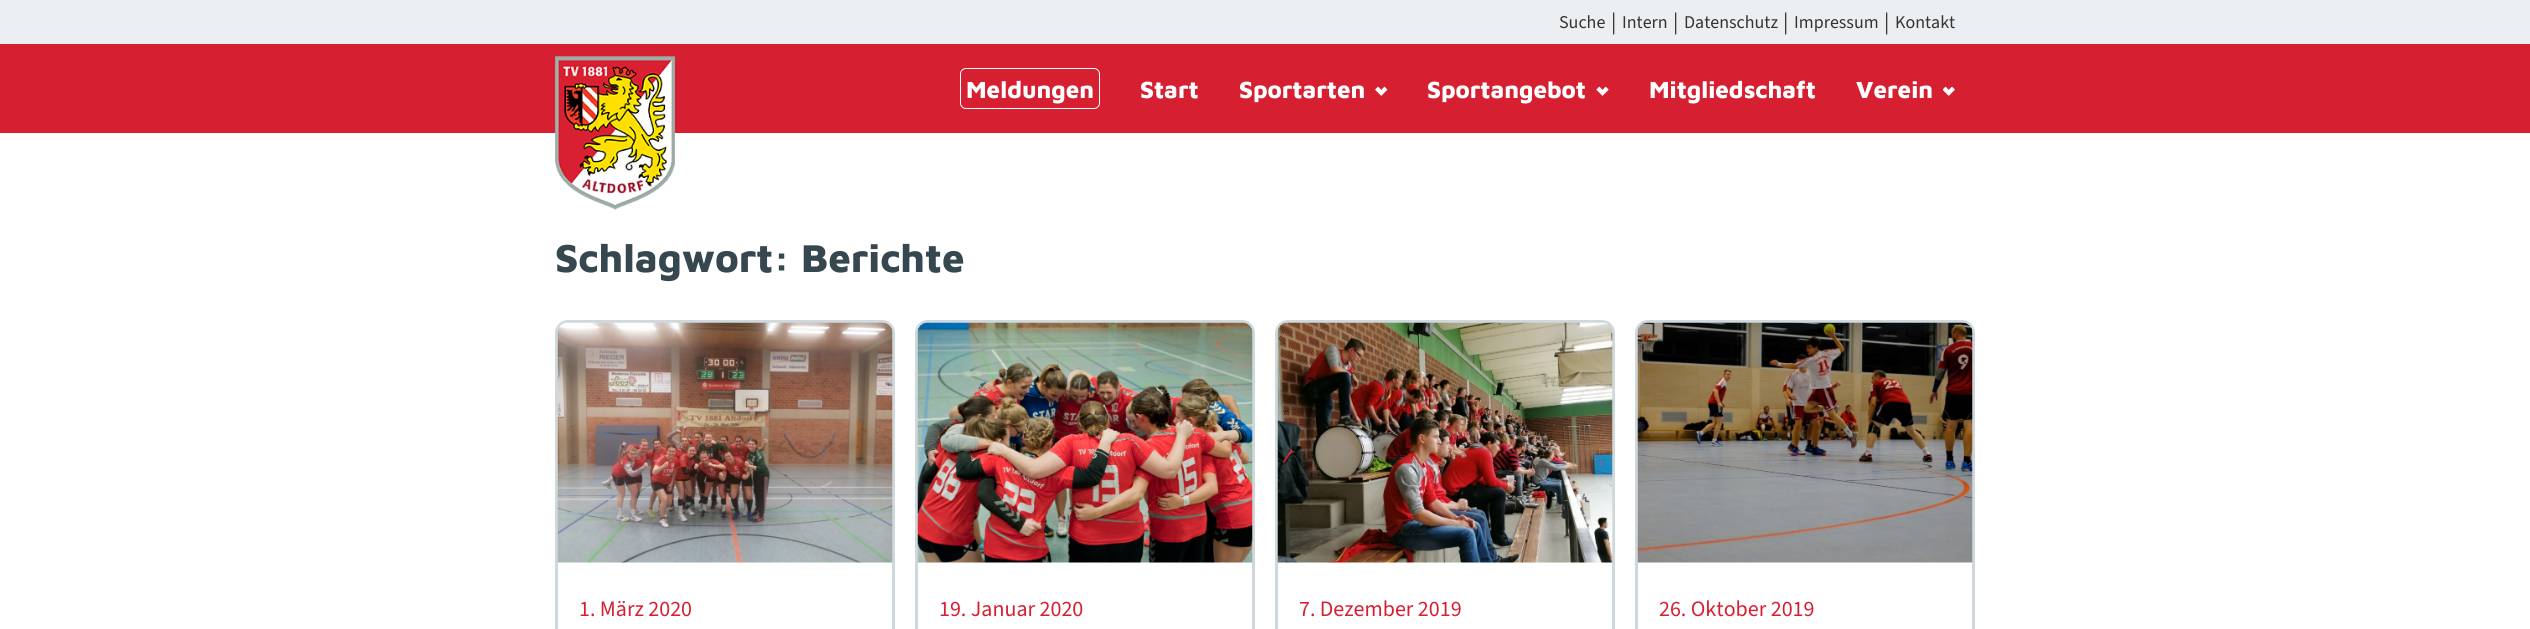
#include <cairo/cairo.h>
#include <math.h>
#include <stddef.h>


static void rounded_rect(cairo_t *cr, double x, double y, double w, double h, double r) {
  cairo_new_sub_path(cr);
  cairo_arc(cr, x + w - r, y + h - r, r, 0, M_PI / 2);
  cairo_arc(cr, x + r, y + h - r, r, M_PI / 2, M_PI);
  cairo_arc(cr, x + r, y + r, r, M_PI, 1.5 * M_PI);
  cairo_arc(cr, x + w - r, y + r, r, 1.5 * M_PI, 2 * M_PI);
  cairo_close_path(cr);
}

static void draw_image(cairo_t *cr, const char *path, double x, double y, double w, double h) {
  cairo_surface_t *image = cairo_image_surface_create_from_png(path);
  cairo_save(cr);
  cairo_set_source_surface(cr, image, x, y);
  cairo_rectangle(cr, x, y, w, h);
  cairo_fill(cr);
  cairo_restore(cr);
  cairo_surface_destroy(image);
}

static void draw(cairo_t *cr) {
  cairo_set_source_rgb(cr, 1, 1, 1);
  cairo_paint(cr);
  cairo_set_source_rgb(cr, 236 / 255.0, 239 / 255.0, 241 / 255.0);
  cairo_rectangle(cr, 0, 0, 2530, 44);
  cairo_fill(cr);
  cairo_set_source_rgb(cr, 214 / 255.0, 32 / 255.0, 50 / 255.0);
  cairo_rectangle(cr, 0, 44, 2530, 89);
  cairo_fill(cr);
  draw_image(cr, "images/1.png", 555, 56, 120, 154);
  rounded_rect(cr, 960.5, 68.5, 139, 40, 5.5);
  cairo_set_source_rgb(cr, 1, 1, 1);
  cairo_set_line_width(cr, 1);
  cairo_stroke(cr);
  draw_image(cr, "images/2.png", 1375, 86, 13, 10);
  draw_image(cr, "images/3.png", 1596, 86, 13, 10);
  draw_image(cr, "images/4.png", 1943, 86, 12, 10);
  rounded_rect(cr, 556.5, 321.5, 337, 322, 11.5);
  cairo_set_source_rgb(cr, 207 / 255.0, 216 / 255.0, 220 / 255.0);
  cairo_set_line_width(cr, 3);
  cairo_stroke(cr);
  draw_image(cr, "images/5.png", 557, 322, 336, 241);
  rounded_rect(cr, 916.5, 321.5, 337, 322, 11.5);
  cairo_stroke(cr);
  draw_image(cr, "images/6.png", 917, 322, 336, 241);
  rounded_rect(cr, 1276.5, 321.5, 337, 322, 11.5);
  cairo_stroke(cr);
  draw_image(cr, "images/7.png", 1277, 322, 336, 241);
  rounded_rect(cr, 1636.5, 321.5, 337, 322, 11.5);
  cairo_stroke(cr);
  draw_image(cr, "images/8.png", 1637, 322, 336, 241);
  cairo_select_font_face(cr, "Source Sans 3", CAIRO_FONT_SLANT_NORMAL, CAIRO_FONT_WEIGHT_NORMAL);
  cairo_set_font_size(cr, 18);
  cairo_set_source_rgb(cr, 51 / 255.0, 51 / 255.0, 51 / 255.0);
  cairo_move_to(cr, 1559, 28);
  cairo_show_text(cr, "Suche");
  cairo_set_font_size(cr, 22);
  cairo_move_to(cr, 1611, 29);
  cairo_show_text(cr, "|");
  cairo_set_font_size(cr, 18);
  cairo_move_to(cr, 1622, 28);
  cairo_show_text(cr, "Intern");
  cairo_set_font_size(cr, 22);
  cairo_move_to(cr, 1673, 29);
  cairo_show_text(cr, "|");
  cairo_set_font_size(cr, 18);
  cairo_move_to(cr, 1684, 28);
  cairo_show_text(cr, "Datenschutz");
  cairo_set_font_size(cr, 22);
  cairo_move_to(cr, 1783, 29);
  cairo_show_text(cr, "|");
  cairo_set_font_size(cr, 18);
  cairo_move_to(cr, 1794, 28);
  cairo_show_text(cr, "Impressum");
  cairo_set_font_size(cr, 22);
  cairo_move_to(cr, 1884, 29);
  cairo_show_text(cr, "|");
  cairo_set_font_size(cr, 18);
  cairo_move_to(cr, 1895, 28);
  cairo_show_text(cr, "Kontakt");
  cairo_select_font_face(cr, "Maven Pro ExtraBold", CAIRO_FONT_SLANT_NORMAL, CAIRO_FONT_WEIGHT_NORMAL);
  cairo_set_font_size(cr, 24);
  cairo_set_source_rgb(cr, 1, 1, 1);
  cairo_move_to(cr, 966, 98);
  cairo_show_text(cr, "Meldungen");
  cairo_move_to(cr, 1140, 98);
  cairo_show_text(cr, "Start");
  cairo_move_to(cr, 1239, 98);
  cairo_show_text(cr, "Sportarten");
  cairo_move_to(cr, 1427, 98);
  cairo_show_text(cr, "Sportangebot");
  cairo_move_to(cr, 1649, 98);
  cairo_show_text(cr, "Mitgliedschaft");
  cairo_move_to(cr, 1856, 98);
  cairo_show_text(cr, "Verein");
  cairo_set_font_size(cr, 40);
  cairo_set_source_rgb(cr, 55 / 255.0, 71 / 255.0, 79 / 255.0);
  cairo_move_to(cr, 555, 272);
  cairo_show_text(cr, "Schlagwort: Berichte");
  cairo_select_font_face(cr, "Source Sans 3", CAIRO_FONT_SLANT_NORMAL, CAIRO_FONT_WEIGHT_NORMAL);
  cairo_set_font_size(cr, 22);
  cairo_set_source_rgb(cr, 214 / 255.0, 32 / 255.0, 50 / 255.0);
  cairo_move_to(cr, 579, 616);
  cairo_show_text(cr, "1. März 2020");
  cairo_move_to(cr, 939, 616);
  cairo_show_text(cr, "19. Januar 2020");
  cairo_move_to(cr, 1299, 616);
  cairo_show_text(cr, "7. Dezember 2019");
  cairo_move_to(cr, 1659, 616);
  cairo_show_text(cr, "26. Oktober 2019");
}

int main(void) {
  cairo_surface_t *surface = cairo_image_surface_create(CAIRO_FORMAT_RGB24, 2530, 629);
  cairo_t *cr = cairo_create(surface);
  cairo_font_options_t *options = cairo_font_options_create();
  cairo_font_options_set_hint_metrics(options, CAIRO_HINT_METRICS_OFF);
  cairo_font_options_set_hint_style(options, CAIRO_HINT_STYLE_NONE);
  cairo_set_font_options(cr, options);
  cairo_set_miter_limit(cr, 4);
  draw(cr);
  cairo_surface_write_to_png(surface, "out.png");
  cairo_font_options_destroy(options);
  cairo_destroy(cr);
  cairo_surface_destroy(surface);
  return 0;
}
